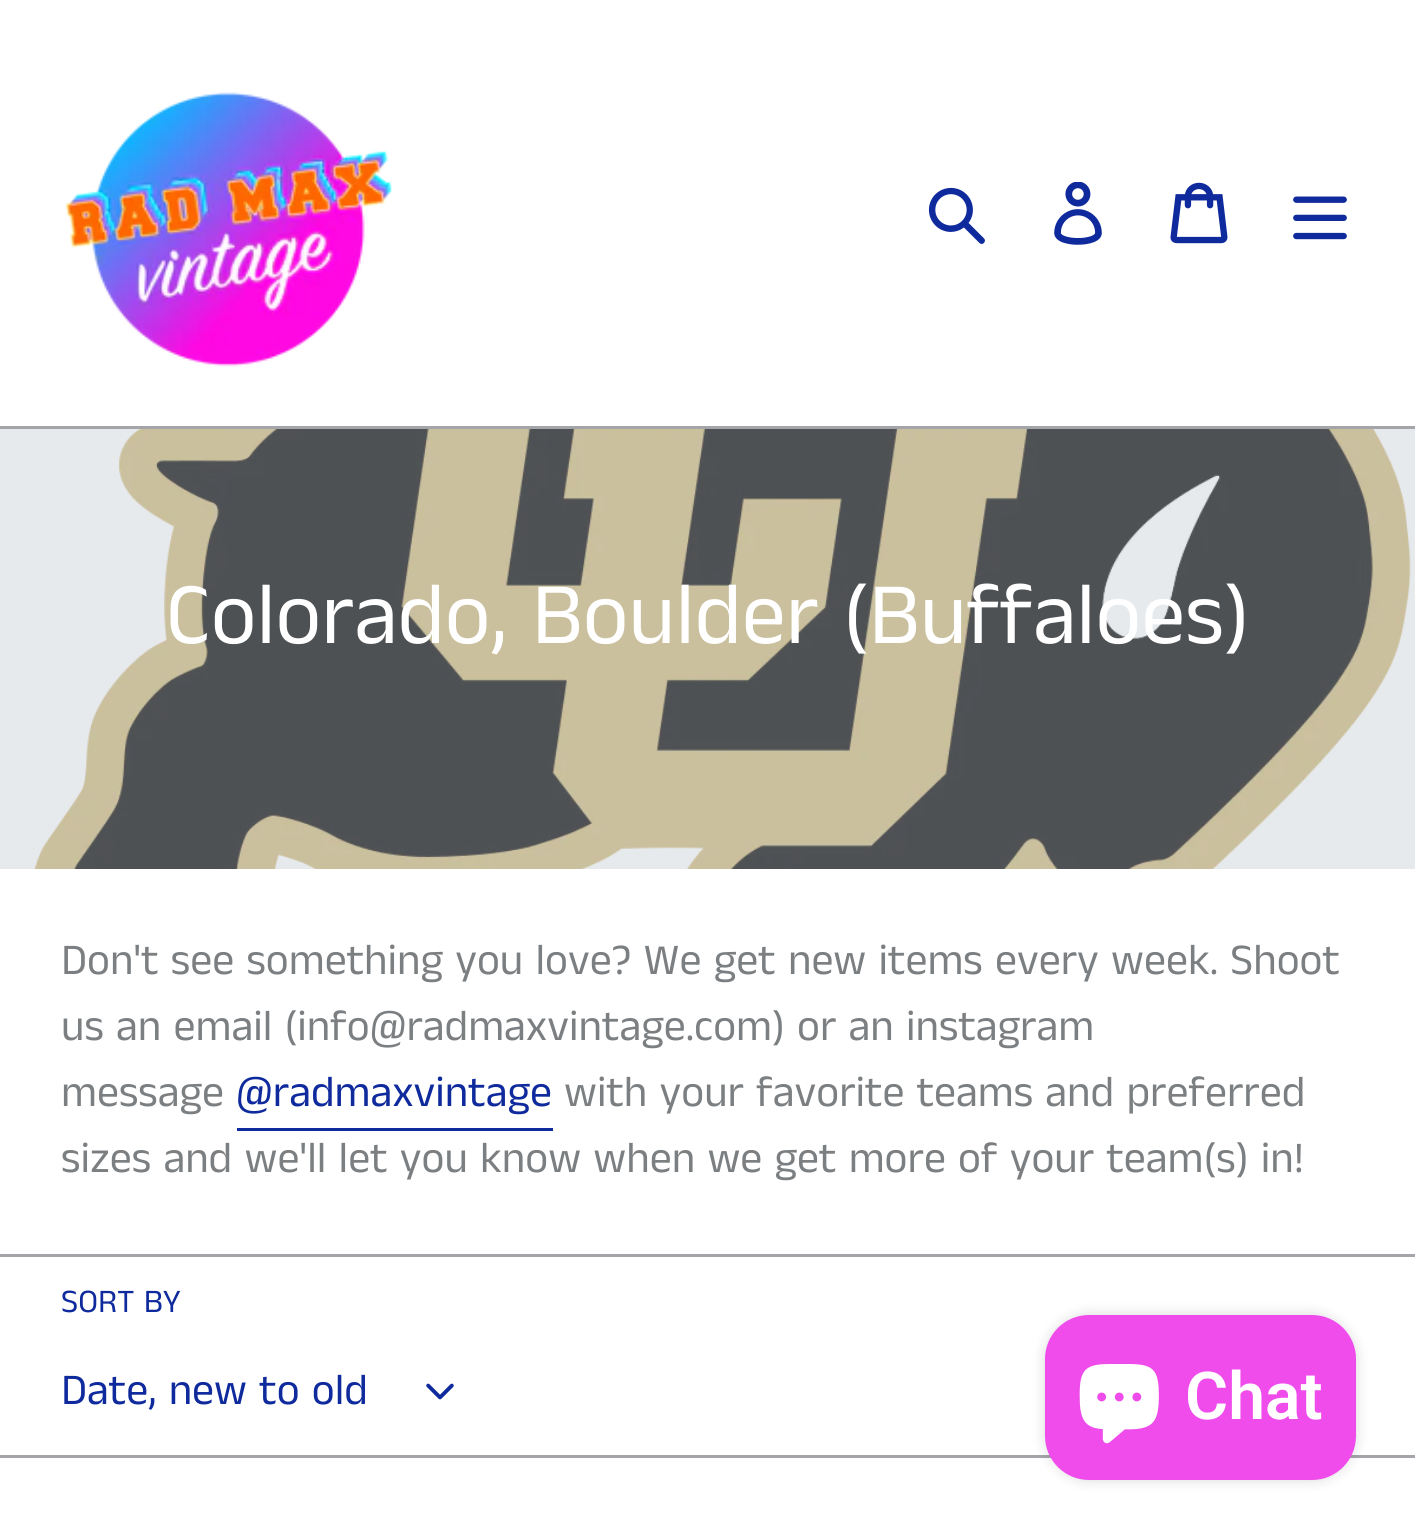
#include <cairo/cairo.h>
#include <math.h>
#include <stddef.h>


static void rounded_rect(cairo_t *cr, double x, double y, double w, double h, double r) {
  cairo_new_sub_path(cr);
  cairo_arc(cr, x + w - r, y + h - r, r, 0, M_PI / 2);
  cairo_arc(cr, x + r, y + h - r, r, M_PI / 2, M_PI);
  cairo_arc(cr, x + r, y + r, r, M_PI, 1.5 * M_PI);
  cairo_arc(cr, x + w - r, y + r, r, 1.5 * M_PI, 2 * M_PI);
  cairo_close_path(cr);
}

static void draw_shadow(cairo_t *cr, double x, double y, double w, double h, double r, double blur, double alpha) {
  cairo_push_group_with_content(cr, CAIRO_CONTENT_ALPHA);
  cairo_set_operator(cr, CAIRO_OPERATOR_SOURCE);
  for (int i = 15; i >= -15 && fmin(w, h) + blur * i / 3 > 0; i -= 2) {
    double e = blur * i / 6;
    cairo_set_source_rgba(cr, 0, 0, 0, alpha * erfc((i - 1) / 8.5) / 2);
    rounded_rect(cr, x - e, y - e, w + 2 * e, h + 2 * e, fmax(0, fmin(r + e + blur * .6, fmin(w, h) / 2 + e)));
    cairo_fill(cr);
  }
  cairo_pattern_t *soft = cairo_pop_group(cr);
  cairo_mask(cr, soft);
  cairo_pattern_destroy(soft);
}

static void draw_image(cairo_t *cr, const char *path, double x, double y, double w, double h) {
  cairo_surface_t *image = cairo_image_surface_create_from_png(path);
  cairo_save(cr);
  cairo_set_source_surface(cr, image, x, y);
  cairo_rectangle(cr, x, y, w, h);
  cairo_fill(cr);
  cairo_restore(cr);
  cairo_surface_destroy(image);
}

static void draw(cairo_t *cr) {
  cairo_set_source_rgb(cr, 1, 1, 1);
  cairo_paint(cr);
  cairo_set_source_rgb(cr, 231 / 255.0, 234 / 255.0, 237 / 255.0);
  cairo_rectangle(cr, 0, 429, 1415, 440);
  cairo_fill(cr);
  cairo_set_source_rgb(cr, 163 / 255.0, 165 / 255.0, 169 / 255.0);
  cairo_rectangle(cr, 0, 426, 1415, 3);
  cairo_fill(cr);
  draw_image(cr, "images/1.png", 65, 92, 327, 275);
  draw_image(cr, "images/2.png", 928, 187, 57, 57);
  draw_image(cr, "images/3.png", 1054, 182, 48, 63);
  draw_image(cr, "images/4.png", 1170, 182, 58, 62);
  draw_image(cr, "images/5.png", 1293, 196, 54, 44);
  draw_image(cr, "images/6.png", 34, 429, 1377, 440);
  cairo_set_source_rgb(cr, 15 / 255.0, 42 / 255.0, 156 / 255.0);
  cairo_rectangle(cr, 237, 1128, 316, 3);
  cairo_fill(cr);
  cairo_set_source_rgb(cr, 163 / 255.0, 165 / 255.0, 169 / 255.0);
  cairo_rectangle(cr, 0, 1254, 1415, 3);
  cairo_fill(cr);
  cairo_rectangle(cr, 0, 1455, 1415, 3);
  cairo_fill(cr);
  draw_image(cr, "images/7.png", 426, 1383, 28, 17);
  cairo_set_source_rgb(cr, 0, 0, 0);
  draw_shadow(cr, 1045, 1315, 311, 165, 44, 7, 0.15);
  cairo_set_source_rgb(cr, 239 / 255.0, 76 / 255.0, 235 / 255.0);
  rounded_rect(cr, 1045, 1315, 311, 165, 44);
  cairo_fill(cr);
  draw_image(cr, "images/8.png", 1079, 1364, 80, 80);
  cairo_select_font_face(cr, "Anek Tamil", CAIRO_FONT_SLANT_NORMAL, CAIRO_FONT_WEIGHT_NORMAL);
  cairo_set_font_size(cr, 88);
  cairo_set_source_rgb(cr, 1, 1, 1);
  cairo_move_to(cr, 166, 643);
  cairo_show_text(cr, "Colorado, Boulder (Buffaloes)");
  cairo_set_font_size(cr, 44);
  cairo_set_source_rgb(cr, 124 / 255.0, 127 / 255.0, 129 / 255.0);
  cairo_move_to(cr, 61, 974);
  cairo_show_text(cr, "Don't see something you love? We get new items every week. Shoot");
  cairo_move_to(cr, 61, 1040);
  cairo_show_text(cr, "us an email (info@radmaxvintage.com) or an instagram");
  cairo_move_to(cr, 61, 1106);
  cairo_show_text(cr, "message");
  cairo_set_source_rgb(cr, 15 / 255.0, 42 / 255.0, 156 / 255.0);
  cairo_move_to(cr, 236, 1106);
  cairo_show_text(cr, "@radmaxvintage");
  cairo_set_source_rgb(cr, 124 / 255.0, 127 / 255.0, 129 / 255.0);
  cairo_move_to(cr, 564, 1106);
  cairo_show_text(cr, "with your favorite teams and preferred");
  cairo_move_to(cr, 61, 1172);
  cairo_show_text(cr, "sizes and we'll let you know when we get more of your team(s) in!");
  cairo_set_font_size(cr, 33);
  cairo_set_source_rgb(cr, 15 / 255.0, 42 / 255.0, 156 / 255.0);
  cairo_move_to(cr, 61, 1312);
  cairo_show_text(cr, "SORT BY");
  cairo_set_font_size(cr, 44);
  cairo_move_to(cr, 61, 1404);
  cairo_show_text(cr, "Date, new to old");
  cairo_select_font_face(cr, "Roboto SemiBold", CAIRO_FONT_SLANT_NORMAL, CAIRO_FONT_WEIGHT_NORMAL);
  cairo_set_font_size(cr, 66);
  cairo_set_source_rgb(cr, 1, 1, 1);
  cairo_move_to(cr, 1185, 1419);
  cairo_show_text(cr, "Chat");
}

int main(void) {
  cairo_surface_t *surface = cairo_image_surface_create(CAIRO_FORMAT_RGB24, 1415, 1537);
  cairo_t *cr = cairo_create(surface);
  cairo_font_options_t *options = cairo_font_options_create();
  cairo_font_options_set_hint_metrics(options, CAIRO_HINT_METRICS_OFF);
  cairo_font_options_set_hint_style(options, CAIRO_HINT_STYLE_NONE);
  cairo_set_font_options(cr, options);
  cairo_set_miter_limit(cr, 4);
  draw(cr);
  cairo_surface_write_to_png(surface, "out.png");
  cairo_font_options_destroy(options);
  cairo_destroy(cr);
  cairo_surface_destroy(surface);
  return 0;
}
